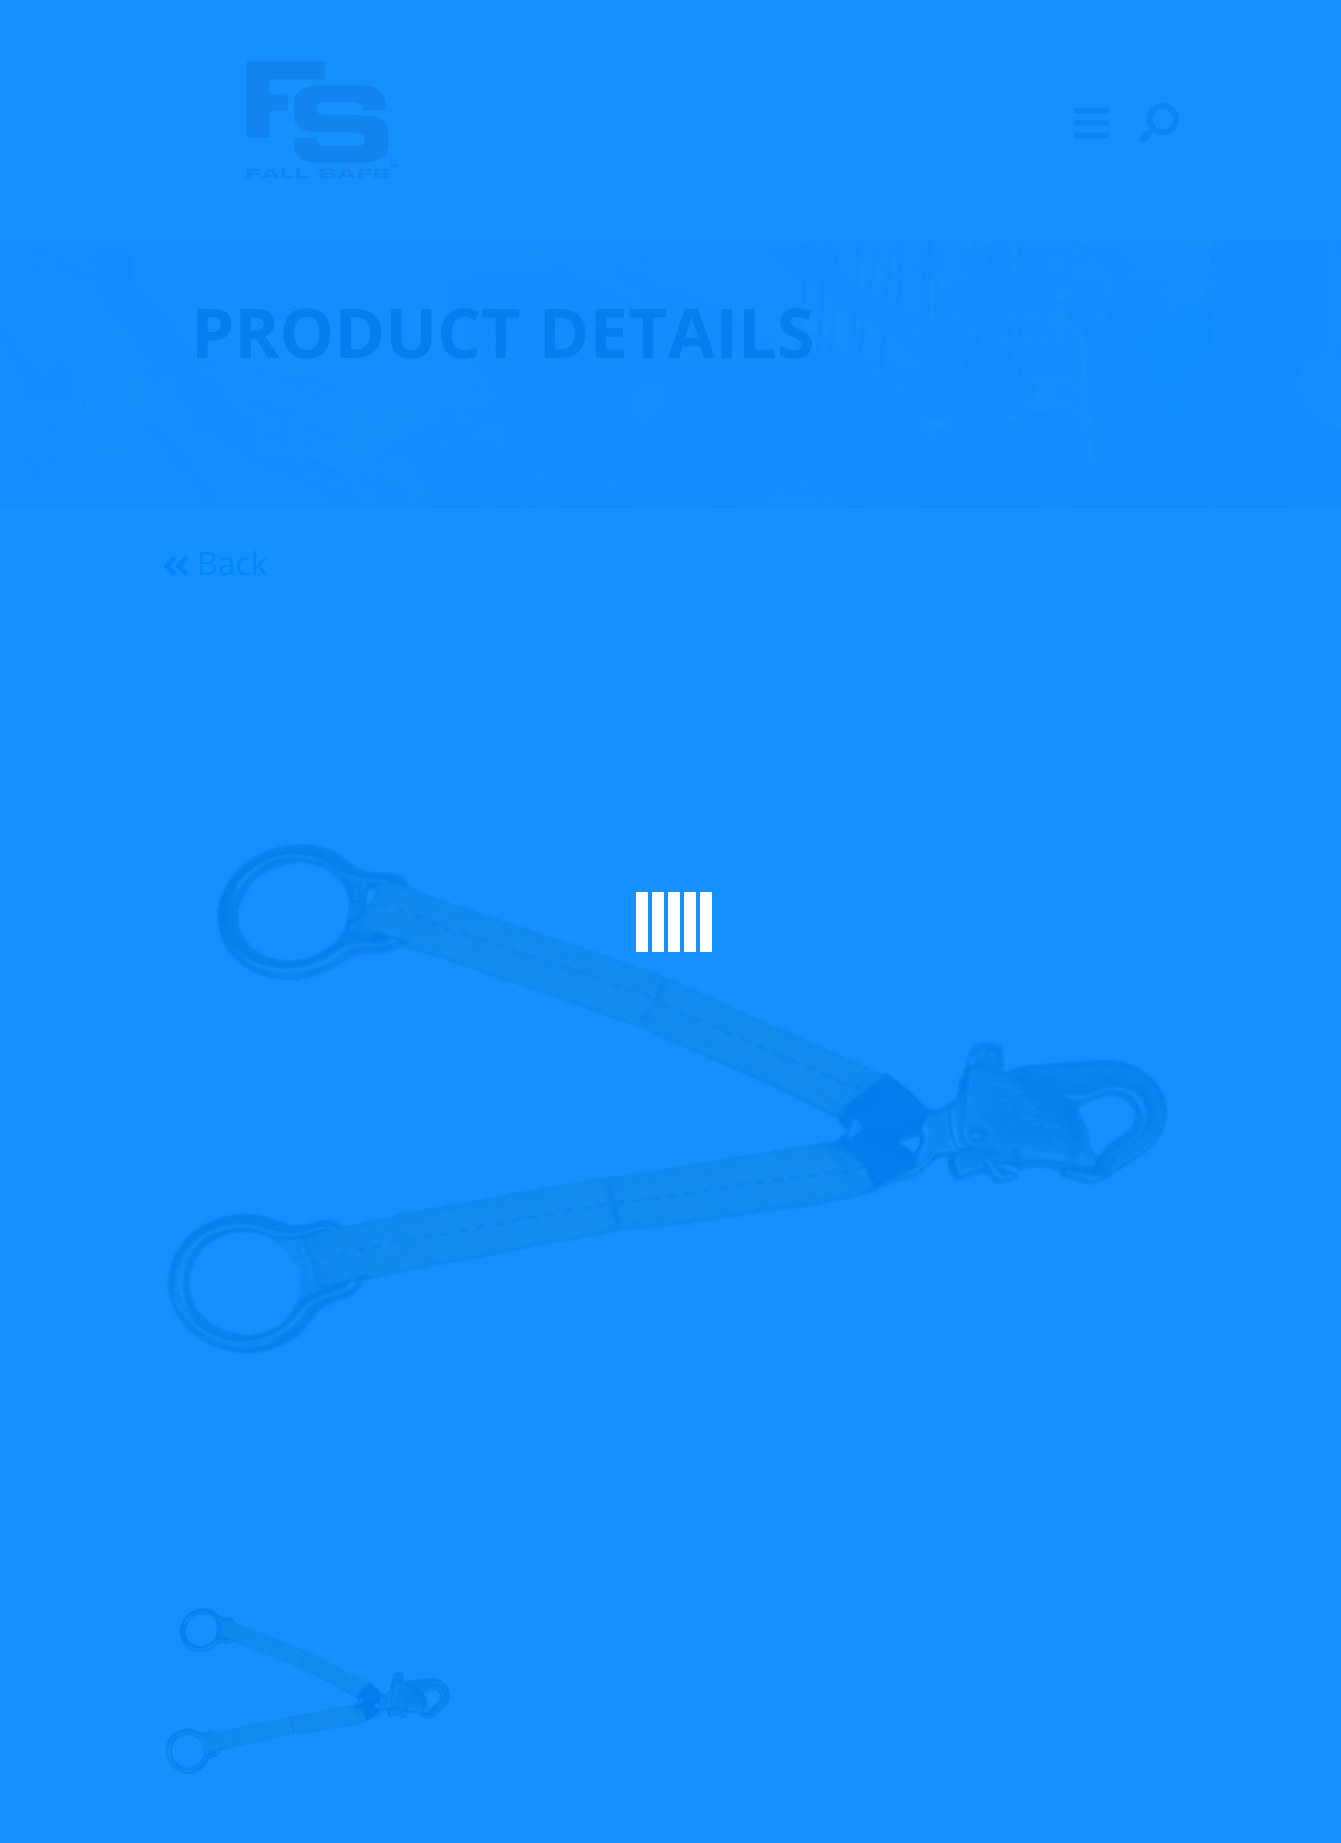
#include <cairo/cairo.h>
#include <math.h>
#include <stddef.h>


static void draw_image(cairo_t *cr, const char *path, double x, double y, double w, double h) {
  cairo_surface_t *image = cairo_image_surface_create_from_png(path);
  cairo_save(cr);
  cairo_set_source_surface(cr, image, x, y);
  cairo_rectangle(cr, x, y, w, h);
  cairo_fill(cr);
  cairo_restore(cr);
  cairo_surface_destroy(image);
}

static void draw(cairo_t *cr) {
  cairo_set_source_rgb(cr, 20 / 255.0, 145 / 255.0, 1);
  cairo_paint(cr);
  cairo_set_source_rgb(cr, 18 / 255.0, 142 / 255.0, 253 / 255.0);
  cairo_rectangle(cr, 0, 240, 1341, 2);
  cairo_fill(cr);
  draw_image(cr, "images/1.png", 246, 61, 152, 118);
  draw_image(cr, "images/2.png", 1074, 107, 35, 32);
  draw_image(cr, "images/3.png", 1139, 103, 40, 40);
  draw_image(cr, "images/4.png", 0, 242, 1341, 266);
  draw_image(cr, "images/5.png", 163, 556, 26, 20);
  draw_image(cr, "images/6.png", 162, 834, 1017, 532);
  draw_image(cr, "images/7.png", 164, 1605, 289, 173);
  cairo_set_source_rgb(cr, 1, 1, 1);
  cairo_rectangle(cr, 636, 892, 12, 60);
  cairo_fill(cr);
  cairo_rectangle(cr, 652, 892, 12, 60);
  cairo_fill(cr);
  cairo_rectangle(cr, 668, 892, 12, 60);
  cairo_fill(cr);
  cairo_rectangle(cr, 684, 892, 12, 60);
  cairo_fill(cr);
  cairo_rectangle(cr, 700, 892, 12, 60);
  cairo_fill(cr);
  cairo_select_font_face(cr, "Open Sans", CAIRO_FONT_SLANT_NORMAL, CAIRO_FONT_WEIGHT_BOLD);
  cairo_set_font_size(cr, 68.75);
  cairo_set_source_rgb(cr, 3 / 255.0, 127 / 255.0, 238 / 255.0);
  cairo_move_to(cr, 191, 358);
  cairo_show_text(cr, "PRODUCT DETAILS");
  cairo_select_font_face(cr, "Open Sans", CAIRO_FONT_SLANT_NORMAL, CAIRO_FONT_WEIGHT_NORMAL);
  cairo_set_font_size(cr, 32);
  cairo_set_source_rgb(cr, 0, 135 / 255.0, 1);
  cairo_move_to(cr, 197, 575);
  cairo_show_text(cr, "Back");
}

int main(void) {
  cairo_surface_t *surface = cairo_image_surface_create(CAIRO_FORMAT_RGB24, 1341, 1843);
  cairo_t *cr = cairo_create(surface);
  cairo_font_options_t *options = cairo_font_options_create();
  cairo_font_options_set_hint_metrics(options, CAIRO_HINT_METRICS_OFF);
  cairo_font_options_set_hint_style(options, CAIRO_HINT_STYLE_NONE);
  cairo_set_font_options(cr, options);
  cairo_set_miter_limit(cr, 4);
  draw(cr);
  cairo_surface_write_to_png(surface, "out.png");
  cairo_font_options_destroy(options);
  cairo_destroy(cr);
  cairo_surface_destroy(surface);
  return 0;
}
